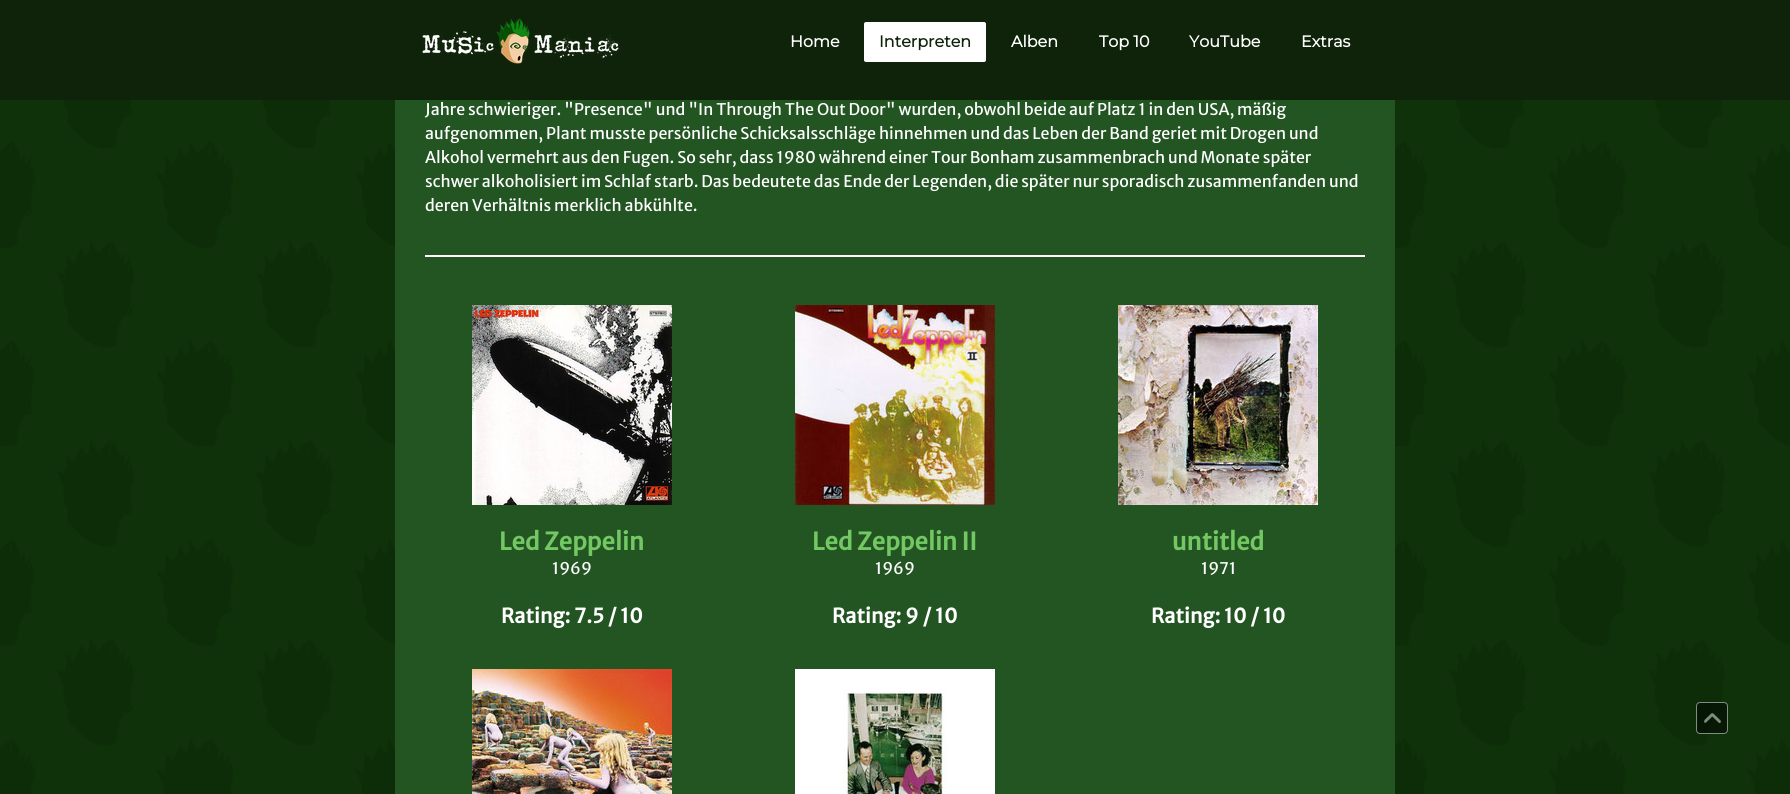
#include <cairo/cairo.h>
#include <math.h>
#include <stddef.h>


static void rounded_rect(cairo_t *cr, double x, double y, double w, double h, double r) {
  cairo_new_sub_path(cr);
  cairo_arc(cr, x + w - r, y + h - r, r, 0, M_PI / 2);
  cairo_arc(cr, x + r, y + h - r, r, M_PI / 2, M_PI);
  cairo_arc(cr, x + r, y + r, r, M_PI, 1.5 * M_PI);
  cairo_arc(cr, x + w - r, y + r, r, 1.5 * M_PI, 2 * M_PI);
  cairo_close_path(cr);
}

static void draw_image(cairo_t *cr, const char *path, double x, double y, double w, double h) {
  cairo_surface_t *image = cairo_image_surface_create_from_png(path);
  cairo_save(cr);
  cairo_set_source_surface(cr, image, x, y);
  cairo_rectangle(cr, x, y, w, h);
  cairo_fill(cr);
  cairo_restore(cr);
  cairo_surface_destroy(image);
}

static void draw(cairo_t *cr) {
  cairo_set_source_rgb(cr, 1, 1, 1);
  cairo_paint(cr);
  cairo_set_source_rgb(cr, 15 / 255.0, 35 / 255.0, 10 / 255.0);
  cairo_rectangle(cr, 0, 0, 1790, 100);
  cairo_fill(cr);
  draw_image(cr, "images/1.png", 422, 18, 197, 46);
  cairo_set_source_rgb(cr, 1, 1, 1);
  rounded_rect(cr, 864, 22, 122, 40, 2);
  cairo_fill(cr);
  draw_image(cr, "images/2.png", 0, 100, 1790, 694);
  cairo_set_source_rgb(cr, 35 / 255.0, 85 / 255.0, 35 / 255.0);
  cairo_rectangle(cr, 395, 100, 1000, 694);
  cairo_fill(cr);
  cairo_set_source_rgb(cr, 1, 1, 1);
  cairo_rectangle(cr, 425, 255, 940, 2);
  cairo_fill(cr);
  draw_image(cr, "images/3.png", 472, 305, 200, 200);
  draw_image(cr, "images/4.png", 795, 305, 200, 200);
  draw_image(cr, "images/5.png", 1118, 305, 200, 200);
  draw_image(cr, "images/6.png", 472, 669, 200, 125);
  draw_image(cr, "images/7.png", 795, 669, 200, 125);
  cairo_set_source_rgba(cr, 0, 0, 0, 0.5);
  rounded_rect(cr, 1696, 702, 32, 32, 4);
  cairo_fill(cr);
  rounded_rect(cr, 1696.5, 702.5, 31, 31, 3.5);
  cairo_set_source_rgba(cr, 1, 1, 1, 0.5);
  cairo_set_line_width(cr, 1);
  cairo_stroke(cr);
  draw_image(cr, "images/8.png", 1704, 713, 17, 10);
  cairo_select_font_face(cr, "Montserrat", CAIRO_FONT_SLANT_NORMAL, CAIRO_FONT_WEIGHT_BOLD);
  cairo_set_font_size(cr, 16);
  cairo_set_source_rgb(cr, 1, 1, 1);
  cairo_move_to(cr, 790, 47);
  cairo_show_text(cr, "Home");
  cairo_set_source_rgb(cr, 15 / 255.0, 35 / 255.0, 10 / 255.0);
  cairo_move_to(cr, 879, 47);
  cairo_show_text(cr, "Interpreten");
  cairo_set_source_rgb(cr, 1, 1, 1);
  cairo_move_to(cr, 1011, 47);
  cairo_show_text(cr, "Alben");
  cairo_move_to(cr, 1099, 47);
  cairo_show_text(cr, "Top 10");
  cairo_move_to(cr, 1189, 47);
  cairo_show_text(cr, "YouTube");
  cairo_move_to(cr, 1301, 47);
  cairo_show_text(cr, "Extras");
  cairo_select_font_face(cr, "Merriweather Sans", CAIRO_FONT_SLANT_NORMAL, CAIRO_FONT_WEIGHT_NORMAL);
  cairo_move_to(cr, 425, 115);
  cairo_show_text(cr, "Jahre schwieriger. \"Presence\" und \"In Through The Out Door\" wurden, obwohl beide auf Platz 1 in den USA, mäßig");
  cairo_move_to(cr, 425, 139);
  cairo_show_text(cr, "aufgenommen, Plant musste persönliche Schicksalsschläge hinnehmen und das Leben der Band geriet mit Drogen und");
  cairo_move_to(cr, 425, 163);
  cairo_show_text(cr, "Alkohol vermehrt aus den Fugen. So sehr, dass 1980 während einer Tour Bonham zusammenbrach und Monate später");
  cairo_move_to(cr, 425, 187);
  cairo_show_text(cr, "schwer alkoholisiert im Schlaf starb. Das bedeutete das Ende der Legenden, die später nur sporadisch zusammenfanden und");
  cairo_move_to(cr, 425, 211);
  cairo_show_text(cr, "deren Verhältnis merklich abkühlte.");
  cairo_select_font_face(cr, "Merriweather Sans", CAIRO_FONT_SLANT_NORMAL, CAIRO_FONT_WEIGHT_BOLD);
  cairo_set_font_size(cr, 24);
  cairo_set_source_rgb(cr, 115 / 255.0, 200 / 255.0, 100 / 255.0);
  cairo_move_to(cr, 499, 550);
  cairo_show_text(cr, "Led Zeppelin");
  cairo_select_font_face(cr, "Merriweather Sans", CAIRO_FONT_SLANT_NORMAL, CAIRO_FONT_WEIGHT_NORMAL);
  cairo_set_font_size(cr, 16);
  cairo_set_source_rgb(cr, 1, 1, 1);
  cairo_move_to(cr, 552, 574);
  cairo_show_text(cr, "1969");
  cairo_select_font_face(cr, "Merriweather Sans", CAIRO_FONT_SLANT_NORMAL, CAIRO_FONT_WEIGHT_BOLD);
  cairo_set_font_size(cr, 20);
  cairo_move_to(cr, 501, 623);
  cairo_show_text(cr, "Rating: 7.5 / 10");
  cairo_set_font_size(cr, 24);
  cairo_set_source_rgb(cr, 115 / 255.0, 200 / 255.0, 100 / 255.0);
  cairo_move_to(cr, 812, 550);
  cairo_show_text(cr, "Led Zeppelin II");
  cairo_select_font_face(cr, "Merriweather Sans", CAIRO_FONT_SLANT_NORMAL, CAIRO_FONT_WEIGHT_NORMAL);
  cairo_set_font_size(cr, 16);
  cairo_set_source_rgb(cr, 1, 1, 1);
  cairo_move_to(cr, 875, 574);
  cairo_show_text(cr, "1969");
  cairo_select_font_face(cr, "Merriweather Sans", CAIRO_FONT_SLANT_NORMAL, CAIRO_FONT_WEIGHT_BOLD);
  cairo_set_font_size(cr, 20);
  cairo_move_to(cr, 832, 623);
  cairo_show_text(cr, "Rating: 9 / 10");
  cairo_set_font_size(cr, 24);
  cairo_set_source_rgb(cr, 115 / 255.0, 200 / 255.0, 100 / 255.0);
  cairo_move_to(cr, 1172, 550);
  cairo_show_text(cr, "untitled");
  cairo_select_font_face(cr, "Merriweather Sans", CAIRO_FONT_SLANT_NORMAL, CAIRO_FONT_WEIGHT_NORMAL);
  cairo_set_font_size(cr, 16);
  cairo_set_source_rgb(cr, 1, 1, 1);
  cairo_move_to(cr, 1201, 574);
  cairo_show_text(cr, "1971");
  cairo_select_font_face(cr, "Merriweather Sans", CAIRO_FONT_SLANT_NORMAL, CAIRO_FONT_WEIGHT_BOLD);
  cairo_set_font_size(cr, 20);
  cairo_move_to(cr, 1151, 623);
  cairo_show_text(cr, "Rating: 10 / 10");
}

int main(void) {
  cairo_surface_t *surface = cairo_image_surface_create(CAIRO_FORMAT_RGB24, 1790, 794);
  cairo_t *cr = cairo_create(surface);
  cairo_font_options_t *options = cairo_font_options_create();
  cairo_font_options_set_hint_metrics(options, CAIRO_HINT_METRICS_OFF);
  cairo_font_options_set_hint_style(options, CAIRO_HINT_STYLE_NONE);
  cairo_set_font_options(cr, options);
  cairo_set_miter_limit(cr, 4);
  draw(cr);
  cairo_surface_write_to_png(surface, "out.png");
  cairo_font_options_destroy(options);
  cairo_destroy(cr);
  cairo_surface_destroy(surface);
  return 0;
}
